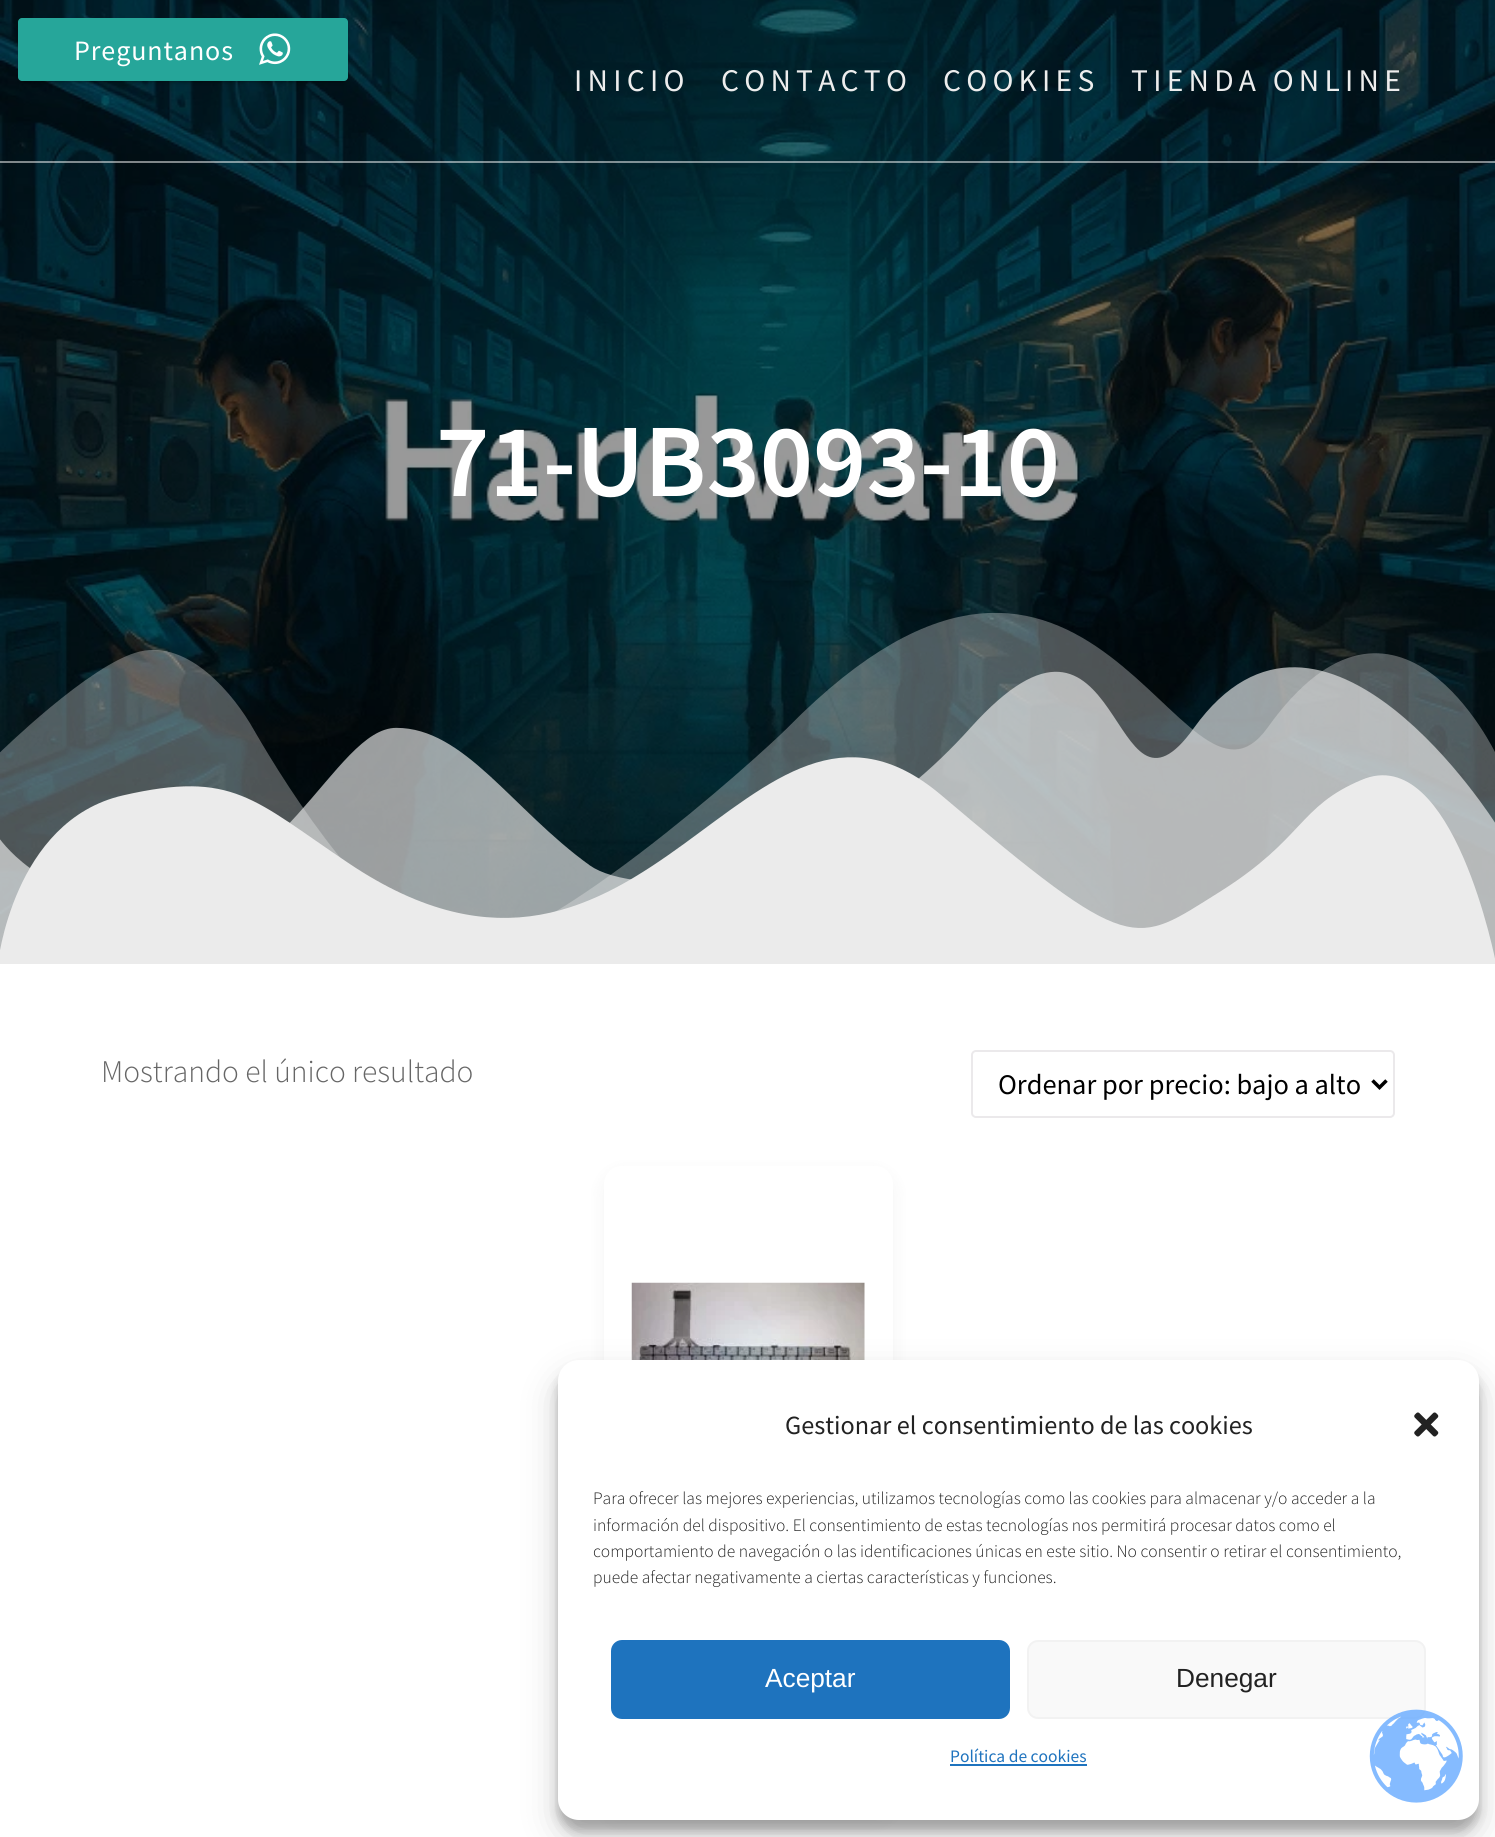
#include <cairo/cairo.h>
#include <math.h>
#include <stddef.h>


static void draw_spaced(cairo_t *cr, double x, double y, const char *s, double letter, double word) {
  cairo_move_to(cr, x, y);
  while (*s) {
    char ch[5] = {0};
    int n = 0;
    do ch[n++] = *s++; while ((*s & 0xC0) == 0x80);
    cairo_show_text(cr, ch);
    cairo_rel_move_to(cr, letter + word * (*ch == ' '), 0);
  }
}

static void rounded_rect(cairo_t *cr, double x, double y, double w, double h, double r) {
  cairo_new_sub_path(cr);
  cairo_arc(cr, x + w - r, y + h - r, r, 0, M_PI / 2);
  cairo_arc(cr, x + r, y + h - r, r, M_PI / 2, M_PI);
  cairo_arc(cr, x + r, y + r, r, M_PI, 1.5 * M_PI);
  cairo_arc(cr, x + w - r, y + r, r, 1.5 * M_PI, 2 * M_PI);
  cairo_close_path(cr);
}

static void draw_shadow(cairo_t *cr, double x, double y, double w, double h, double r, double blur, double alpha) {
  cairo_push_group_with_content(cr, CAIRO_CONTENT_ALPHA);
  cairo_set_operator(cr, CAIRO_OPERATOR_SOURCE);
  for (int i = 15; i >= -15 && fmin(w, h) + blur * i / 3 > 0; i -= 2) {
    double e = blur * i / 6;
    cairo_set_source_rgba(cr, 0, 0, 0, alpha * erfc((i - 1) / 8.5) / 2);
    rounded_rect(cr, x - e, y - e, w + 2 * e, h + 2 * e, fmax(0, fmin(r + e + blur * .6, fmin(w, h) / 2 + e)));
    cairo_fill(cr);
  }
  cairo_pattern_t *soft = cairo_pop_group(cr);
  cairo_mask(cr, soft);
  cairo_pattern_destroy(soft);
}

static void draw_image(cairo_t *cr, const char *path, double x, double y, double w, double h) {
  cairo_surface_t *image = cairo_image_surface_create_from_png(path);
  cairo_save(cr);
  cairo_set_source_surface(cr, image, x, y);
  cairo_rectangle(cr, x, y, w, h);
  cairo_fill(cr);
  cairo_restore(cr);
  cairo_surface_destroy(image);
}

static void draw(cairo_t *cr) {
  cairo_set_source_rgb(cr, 1, 1, 1);
  cairo_paint(cr);
  draw_image(cr, "images/2.png", 0, 0, 1495, 959);
  cairo_set_source_rgb(cr, 0, 0, 0);
  draw_shadow(cr, 21, 26, 324, 56, 0, 1, 0.2);
  draw_shadow(cr, 18, 21, 330, 63, 4, 2, 0.14);
  cairo_set_source_rgb(cr, 38 / 255.0, 166 / 255.0, 154 / 255.0);
  rounded_rect(cr, 18, 18, 330, 63, 4);
  cairo_fill(cr);
  draw_image(cr, "images/1.png", 259, 33, 32, 32);
  draw_image(cr, "images/3.png", 0, 613, 1495, 351);
  rounded_rect(cr, 972, 1051, 422, 66, 4);
  cairo_set_source_rgb(cr, 235 / 255.0, 233 / 255.0, 235 / 255.0);
  cairo_stroke(cr);
  cairo_new_path(cr);
  cairo_move_to(cr, 1372.5, 1080.5);
  cairo_line_to(cr, 1379.5, 1087.5);
  cairo_line_to(cr, 1386.5, 1080.5);
  cairo_set_source_rgb(cr, 0, 0, 0);
  cairo_set_line_width(cr, 3.5);
  cairo_stroke(cr);
  cairo_set_source_rgb(cr, 0, 0, 0);
  draw_shadow(cr, 604, 1173, 289, 647, 18, 9, 0.05);
  cairo_set_source_rgb(cr, 1, 1, 1);
  rounded_rect(cr, 604, 1166, 289, 647, 18);
  cairo_fill(cr);
  draw_image(cr, "images/4.png", 631, 1282, 234, 78);
  cairo_set_source_rgb(cr, 0, 0, 0);
  draw_shadow(cr, 558, 1370, 921, 461, 21, 5, 0.23);
  draw_shadow(cr, 558, 1377, 921, 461, 21, 17.5, 0.19);
  cairo_set_source_rgb(cr, 1, 1, 1);
  rounded_rect(cr, 558, 1360, 921, 460, 21);
  cairo_fill(cr);
  cairo_set_source_rgb(cr, 249 / 255.0, 249 / 255.0, 249 / 255.0);
  rounded_rect(cr, 1028, 1641, 397, 77, 10);
  cairo_fill_preserve(cr);
  cairo_set_source_rgb(cr, 242 / 255.0, 242 / 255.0, 242 / 255.0);
  cairo_set_line_width(cr, 2);
  cairo_stroke(cr);
  draw_image(cr, "images/5.png", 1369, 1709, 94, 94);
  cairo_set_source_rgba(cr, 1, 1, 1, 0.5);
  cairo_rectangle(cr, 0, 161, 1495, 2);
  cairo_fill(cr);
  draw_image(cr, "images/6.png", 1414, 1412, 25, 25);
  cairo_set_source_rgb(cr, 30 / 255.0, 115 / 255.0, 190 / 255.0);
  rounded_rect(cr, 612, 1641, 397, 77, 10);
  cairo_fill_preserve(cr);
  cairo_stroke(cr);
  cairo_rectangle(cr, 950, 1764, 137, 2);
  cairo_fill(cr);
  cairo_select_font_face(cr, "Source Sans Pro", CAIRO_FONT_SLANT_NORMAL, CAIRO_FONT_WEIGHT_NORMAL);
  cairo_set_font_size(cr, 28);
  cairo_set_source_rgb(cr, 1, 1, 1);
  draw_spaced(cr, 74, 60, "Preguntanos", 0.9, 0);
  cairo_select_font_face(cr, "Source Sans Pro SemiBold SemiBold", CAIRO_FONT_SLANT_NORMAL, CAIRO_FONT_WEIGHT_NORMAL);
  cairo_set_font_size(cr, 104);
  cairo_move_to(cr, 436, 496);
  cairo_show_text(cr, "71-UB3093-10");
  cairo_select_font_face(cr, "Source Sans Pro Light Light", CAIRO_FONT_SLANT_NORMAL, CAIRO_FONT_WEIGHT_NORMAL);
  cairo_set_font_size(cr, 31.5);
  cairo_set_source_rgb(cr, 102 / 255.0, 102 / 255.0, 102 / 255.0);
  cairo_move_to(cr, 101, 1082);
  cairo_show_text(cr, "Mostrando el único resultado");
  cairo_select_font_face(cr, "Source Sans Pro", CAIRO_FONT_SLANT_NORMAL, CAIRO_FONT_WEIGHT_NORMAL);
  cairo_set_font_size(cr, 28.4);
  cairo_set_source_rgb(cr, 0, 0, 0);
  cairo_move_to(cr, 998, 1094);
  cairo_show_text(cr, "Ordenar por precio: bajo a alto");
  cairo_set_font_size(cr, 31.5);
  cairo_set_source_rgb(cr, 237 / 255.0, 237 / 255.0, 237 / 255.0);
  draw_spaced(cr, 574, 91, "INICIO", 5.25, 0);
  draw_spaced(cr, 721, 91, "CONTACTO", 5.25, 0);
  draw_spaced(cr, 943, 91, "COOKIES", 5.25, 0);
  draw_spaced(cr, 1131, 91, "TIENDA ONLINE", 5.25, 0);
  cairo_set_font_size(cr, 26.25);
  cairo_set_source_rgb(cr, 34 / 255.0, 34 / 255.0, 34 / 255.0);
  cairo_move_to(cr, 785, 1434);
  cairo_show_text(cr, "Gestionar el consentimiento de las cookies");
  cairo_select_font_face(cr, "Source Sans Pro Light Light", CAIRO_FONT_SLANT_NORMAL, CAIRO_FONT_WEIGHT_NORMAL);
  cairo_set_font_size(cr, 17.5);
  cairo_move_to(cr, 593, 1504);
  cairo_show_text(cr, "Para ofrecer las mejores experiencias, utilizamos tecnologías como las cookies para almacenar y/o acceder a la");
  cairo_move_to(cr, 593, 1531);
  cairo_show_text(cr, "información del dispositivo. El consentimiento de estas tecnologías nos permitirá procesar datos como el");
  cairo_move_to(cr, 593, 1557);
  cairo_show_text(cr, "comportamiento de navegación o las identificaciones únicas en este sitio. No consentir o retirar el consentimiento,");
  cairo_move_to(cr, 593, 1583);
  cairo_show_text(cr, "puede afectar negativamente a ciertas características y funciones.");
  cairo_select_font_face(cr, "Liberation Sans", CAIRO_FONT_SLANT_NORMAL, CAIRO_FONT_WEIGHT_NORMAL);
  cairo_set_font_size(cr, 26.25);
  cairo_set_source_rgb(cr, 1, 1, 1);
  cairo_move_to(cr, 765, 1687);
  cairo_show_text(cr, "Aceptar");
  cairo_set_source_rgb(cr, 34 / 255.0, 34 / 255.0, 34 / 255.0);
  cairo_move_to(cr, 1176, 1687);
  cairo_show_text(cr, "Denegar");
  cairo_select_font_face(cr, "Source Sans Pro", CAIRO_FONT_SLANT_NORMAL, CAIRO_FONT_WEIGHT_NORMAL);
  cairo_set_font_size(cr, 17.5);
  cairo_set_source_rgb(cr, 30 / 255.0, 115 / 255.0, 190 / 255.0);
  cairo_move_to(cr, 950, 1762);
  cairo_show_text(cr, "Política de cookies");
}

int main(void) {
  cairo_surface_t *surface = cairo_image_surface_create(CAIRO_FORMAT_RGB24, 1495, 1837);
  cairo_t *cr = cairo_create(surface);
  cairo_font_options_t *options = cairo_font_options_create();
  cairo_font_options_set_hint_metrics(options, CAIRO_HINT_METRICS_OFF);
  cairo_font_options_set_hint_style(options, CAIRO_HINT_STYLE_NONE);
  cairo_set_font_options(cr, options);
  cairo_set_miter_limit(cr, 4);
  draw(cr);
  cairo_surface_write_to_png(surface, "out.png");
  cairo_font_options_destroy(options);
  cairo_destroy(cr);
  cairo_surface_destroy(surface);
  return 0;
}
